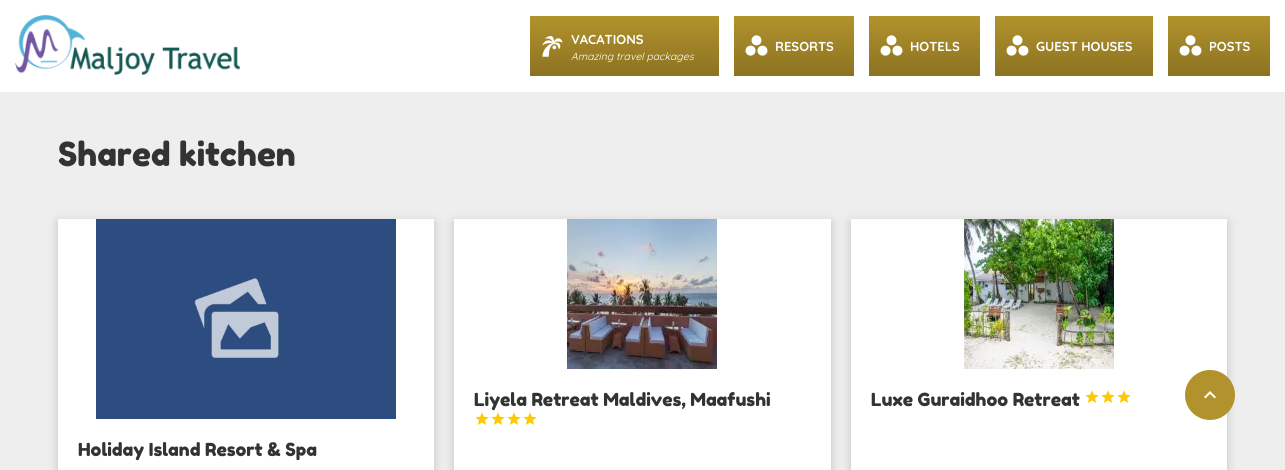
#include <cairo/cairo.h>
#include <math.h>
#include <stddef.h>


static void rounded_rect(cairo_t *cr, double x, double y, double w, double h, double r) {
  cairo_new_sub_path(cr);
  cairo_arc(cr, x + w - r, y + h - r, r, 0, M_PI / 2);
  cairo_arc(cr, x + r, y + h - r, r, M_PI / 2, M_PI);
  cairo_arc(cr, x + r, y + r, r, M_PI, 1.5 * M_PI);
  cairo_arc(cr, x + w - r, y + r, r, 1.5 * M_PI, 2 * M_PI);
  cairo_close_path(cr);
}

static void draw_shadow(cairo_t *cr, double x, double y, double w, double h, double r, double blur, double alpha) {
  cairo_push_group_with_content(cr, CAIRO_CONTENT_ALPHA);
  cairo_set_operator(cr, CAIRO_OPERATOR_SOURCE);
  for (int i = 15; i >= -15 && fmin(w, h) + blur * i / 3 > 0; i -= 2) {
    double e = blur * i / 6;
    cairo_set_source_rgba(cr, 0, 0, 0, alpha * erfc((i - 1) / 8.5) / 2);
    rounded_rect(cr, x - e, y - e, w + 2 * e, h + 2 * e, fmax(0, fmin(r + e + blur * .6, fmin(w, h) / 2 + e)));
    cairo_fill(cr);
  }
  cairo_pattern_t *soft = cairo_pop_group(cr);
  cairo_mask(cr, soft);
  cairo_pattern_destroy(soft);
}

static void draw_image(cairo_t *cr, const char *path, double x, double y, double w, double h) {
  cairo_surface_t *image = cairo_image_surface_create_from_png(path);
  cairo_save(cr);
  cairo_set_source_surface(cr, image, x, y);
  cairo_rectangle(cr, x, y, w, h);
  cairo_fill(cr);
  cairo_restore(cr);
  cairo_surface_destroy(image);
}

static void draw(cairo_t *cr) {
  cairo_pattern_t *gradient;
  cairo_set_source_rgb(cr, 238 / 255.0, 238 / 255.0, 238 / 255.0);
  cairo_paint(cr);
  cairo_set_source_rgb(cr, 1, 1, 1);
  cairo_rectangle(cr, 0, 0, 1285, 92);
  cairo_fill(cr);
  draw_image(cr, "images/1.png", 15, 15, 225, 60);
  gradient = cairo_pattern_create_linear(625, 16, 625, 76);
  cairo_pattern_add_color_stop_rgba(gradient, 0, 177 / 255.0, 146 / 255.0, 44 / 255.0, 1);
  cairo_pattern_add_color_stop_rgba(gradient, 1, 140 / 255.0, 115 / 255.0, 34 / 255.0, 1);
  cairo_set_source(cr, gradient);
  cairo_pattern_destroy(gradient);
  cairo_rectangle(cr, 530, 16, 189, 60);
  cairo_fill(cr);
  draw_image(cr, "images/2.png", 542, 36, 21, 21);
  gradient = cairo_pattern_create_linear(794, 16, 794, 76);
  cairo_pattern_add_color_stop_rgba(gradient, 0, 177 / 255.0, 146 / 255.0, 44 / 255.0, 1);
  cairo_pattern_add_color_stop_rgba(gradient, 1, 140 / 255.0, 115 / 255.0, 34 / 255.0, 1);
  cairo_set_source(cr, gradient);
  cairo_pattern_destroy(gradient);
  cairo_rectangle(cr, 734, 16, 120, 60);
  cairo_fill(cr);
  draw_image(cr, "images/3.png", 745, 35, 23, 21);
  gradient = cairo_pattern_create_linear(925, 16, 925, 76);
  cairo_pattern_add_color_stop_rgba(gradient, 0, 177 / 255.0, 146 / 255.0, 44 / 255.0, 1);
  cairo_pattern_add_color_stop_rgba(gradient, 1, 140 / 255.0, 115 / 255.0, 34 / 255.0, 1);
  cairo_set_source(cr, gradient);
  cairo_pattern_destroy(gradient);
  cairo_rectangle(cr, 869, 16, 111, 60);
  cairo_fill(cr);
  draw_image(cr, "images/3.png", 880, 35, 23, 21);
  gradient = cairo_pattern_create_linear(1074, 16, 1074, 76);
  cairo_pattern_add_color_stop_rgba(gradient, 0, 177 / 255.0, 146 / 255.0, 44 / 255.0, 1);
  cairo_pattern_add_color_stop_rgba(gradient, 1, 140 / 255.0, 115 / 255.0, 34 / 255.0, 1);
  cairo_set_source(cr, gradient);
  cairo_pattern_destroy(gradient);
  cairo_rectangle(cr, 995, 16, 158, 60);
  cairo_fill(cr);
  draw_image(cr, "images/3.png", 1006, 35, 23, 21);
  gradient = cairo_pattern_create_linear(1219, 16, 1219, 76);
  cairo_pattern_add_color_stop_rgba(gradient, 0, 177 / 255.0, 146 / 255.0, 44 / 255.0, 1);
  cairo_pattern_add_color_stop_rgba(gradient, 1, 140 / 255.0, 115 / 255.0, 34 / 255.0, 1);
  cairo_set_source(cr, gradient);
  cairo_pattern_destroy(gradient);
  cairo_rectangle(cr, 1168, 16, 102, 60);
  cairo_fill(cr);
  draw_image(cr, "images/3.png", 1179, 35, 23, 21);
  cairo_set_source_rgb(cr, 0, 0, 0);
  draw_shadow(cr, 454, 222, 377, 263, 0, 5, 0.2);
  cairo_set_source_rgb(cr, 1, 1, 1);
  cairo_rectangle(cr, 454, 219, 377, 251);
  cairo_fill(cr);
  draw_image(cr, "images/4.png", 567, 219, 150, 150);
  draw_image(cr, "images/5.png", 475, 412, 14, 13);
  draw_image(cr, "images/5.png", 491, 412, 14, 13);
  draw_image(cr, "images/5.png", 507, 412, 14, 13);
  draw_image(cr, "images/5.png", 523, 412, 14, 13);
  cairo_set_source_rgb(cr, 0, 0, 0);
  draw_shadow(cr, 851, 222, 376, 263, 0, 5, 0.2);
  cairo_set_source_rgb(cr, 1, 1, 1);
  cairo_rectangle(cr, 851, 219, 376, 251);
  cairo_fill(cr);
  draw_image(cr, "images/6.png", 964, 219, 150, 150);
  draw_image(cr, "images/5.png", 1085, 390, 14, 13);
  draw_image(cr, "images/5.png", 1101, 390, 14, 13);
  draw_image(cr, "images/5.png", 1117, 390, 14, 13);
  cairo_set_source_rgb(cr, 0, 0, 0);
  draw_shadow(cr, 58, 222, 376, 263, 0, 5, 0.2);
  cairo_set_source_rgb(cr, 1, 1, 1);
  cairo_rectangle(cr, 58, 219, 376, 251);
  cairo_fill(cr);
  draw_image(cr, "images/7.png", 96, 219, 300, 200);
  cairo_set_source_rgb(cr, 177 / 255.0, 146 / 255.0, 44 / 255.0);
  cairo_arc(cr, 1210, 395, 25, 0, 2 * M_PI);
  cairo_fill(cr);
  draw_image(cr, "images/8.png", 1204, 391, 12, 8);
  cairo_select_font_face(cr, "Quicksand", CAIRO_FONT_SLANT_NORMAL, CAIRO_FONT_WEIGHT_BOLD);
  cairo_set_font_size(cr, 13);
  cairo_set_source_rgb(cr, 1, 1, 1);
  cairo_move_to(cr, 571, 44);
  cairo_show_text(cr, "VACATIONS");
  cairo_select_font_face(cr, "Quicksand", CAIRO_FONT_SLANT_ITALIC, CAIRO_FONT_WEIGHT_NORMAL);
  cairo_set_font_size(cr, 10.4);
  cairo_move_to(cr, 571, 60);
  cairo_show_text(cr, "Amazing travel packages");
  cairo_select_font_face(cr, "Quicksand", CAIRO_FONT_SLANT_NORMAL, CAIRO_FONT_WEIGHT_BOLD);
  cairo_set_font_size(cr, 13);
  cairo_move_to(cr, 775, 51);
  cairo_show_text(cr, "RESORTS");
  cairo_move_to(cr, 910, 51);
  cairo_show_text(cr, "HOTELS");
  cairo_move_to(cr, 1036, 51);
  cairo_show_text(cr, "GUEST HOUSES");
  cairo_move_to(cr, 1209, 51);
  cairo_show_text(cr, "POSTS");
  cairo_select_font_face(cr, "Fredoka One", CAIRO_FONT_SLANT_NORMAL, CAIRO_FONT_WEIGHT_NORMAL);
  cairo_set_font_size(cr, 33);
  cairo_set_source_rgb(cr, 51 / 255.0, 51 / 255.0, 51 / 255.0);
  cairo_move_to(cr, 58, 166);
  cairo_show_text(cr, "Shared kitchen");
  cairo_set_font_size(cr, 18);
  cairo_move_to(cr, 474, 406);
  cairo_show_text(cr, "Liyela Retreat Maldives, Maafushi");
  cairo_move_to(cr, 871, 406);
  cairo_show_text(cr, "Luxe Guraidhoo Retreat");
  cairo_move_to(cr, 78, 456);
  cairo_show_text(cr, "Holiday Island Resort & Spa");
}

int main(void) {
  cairo_surface_t *surface = cairo_image_surface_create(CAIRO_FORMAT_RGB24, 1285, 470);
  cairo_t *cr = cairo_create(surface);
  cairo_font_options_t *options = cairo_font_options_create();
  cairo_font_options_set_hint_metrics(options, CAIRO_HINT_METRICS_OFF);
  cairo_font_options_set_hint_style(options, CAIRO_HINT_STYLE_NONE);
  cairo_set_font_options(cr, options);
  cairo_set_miter_limit(cr, 4);
  draw(cr);
  cairo_surface_write_to_png(surface, "out.png");
  cairo_font_options_destroy(options);
  cairo_destroy(cr);
  cairo_surface_destroy(surface);
  return 0;
}
